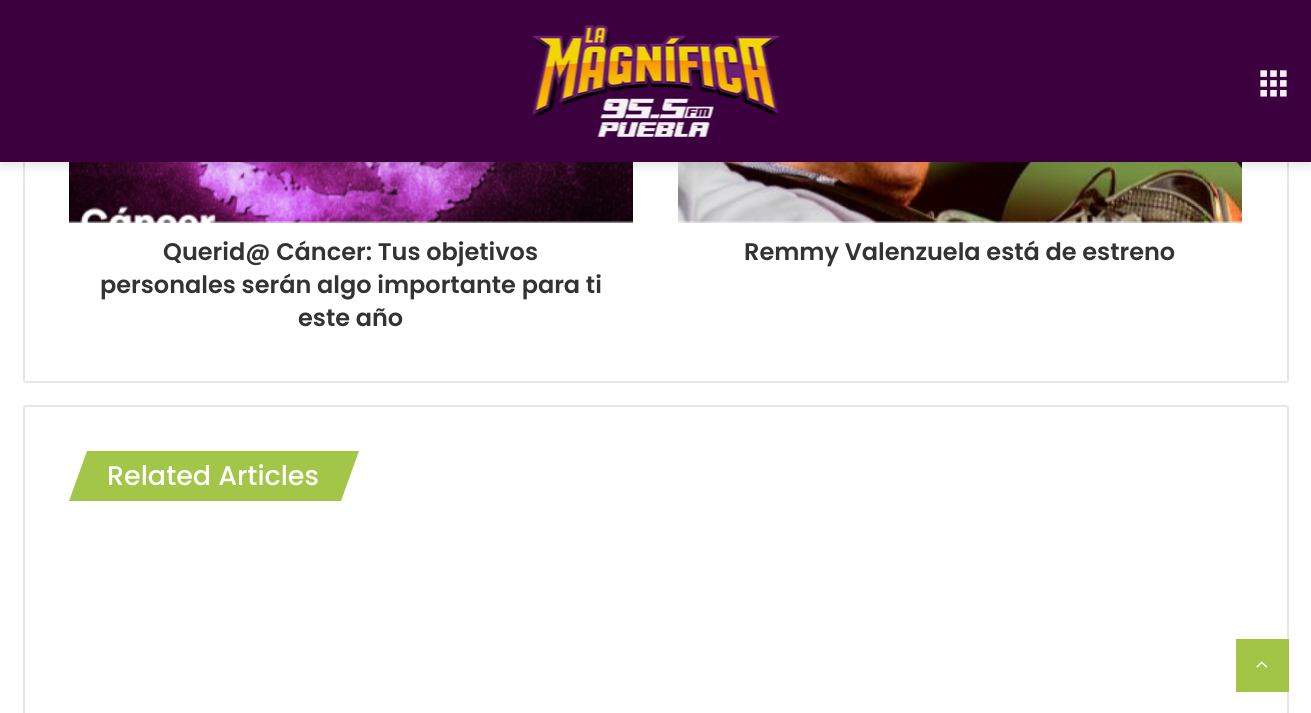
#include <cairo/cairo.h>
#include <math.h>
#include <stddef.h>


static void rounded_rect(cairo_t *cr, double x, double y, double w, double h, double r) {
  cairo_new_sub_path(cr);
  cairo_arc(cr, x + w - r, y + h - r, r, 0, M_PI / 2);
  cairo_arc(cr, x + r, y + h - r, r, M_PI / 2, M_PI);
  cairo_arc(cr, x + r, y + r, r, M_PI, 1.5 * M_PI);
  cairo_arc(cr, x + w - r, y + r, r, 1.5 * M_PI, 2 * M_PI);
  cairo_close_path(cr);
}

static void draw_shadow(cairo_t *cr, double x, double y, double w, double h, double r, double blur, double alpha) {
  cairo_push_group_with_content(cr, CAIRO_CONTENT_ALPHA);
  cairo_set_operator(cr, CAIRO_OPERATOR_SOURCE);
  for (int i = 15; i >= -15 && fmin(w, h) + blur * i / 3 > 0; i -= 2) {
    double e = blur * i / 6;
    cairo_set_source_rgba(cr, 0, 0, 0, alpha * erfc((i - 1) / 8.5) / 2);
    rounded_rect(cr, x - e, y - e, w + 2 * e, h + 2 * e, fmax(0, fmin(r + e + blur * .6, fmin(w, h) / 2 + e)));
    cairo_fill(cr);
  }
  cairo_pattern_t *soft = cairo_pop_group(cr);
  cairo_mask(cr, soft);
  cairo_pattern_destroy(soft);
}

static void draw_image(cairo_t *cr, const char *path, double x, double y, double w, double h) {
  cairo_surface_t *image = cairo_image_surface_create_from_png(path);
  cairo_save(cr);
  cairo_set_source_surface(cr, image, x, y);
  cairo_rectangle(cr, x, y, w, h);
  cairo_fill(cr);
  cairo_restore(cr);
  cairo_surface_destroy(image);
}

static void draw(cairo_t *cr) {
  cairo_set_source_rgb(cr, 1, 1, 1);
  cairo_paint(cr);
  rounded_rect(cr, 24, -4, 1264, 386, 2);
  cairo_set_source_rgb(cr, 230 / 255.0, 230 / 255.0, 230 / 255.0);
  cairo_stroke(cr);
  draw_image(cr, "images/3.png", 69, 162, 564, 61);
  draw_image(cr, "images/4.png", 678, 162, 564, 61);
  cairo_set_source_rgb(cr, 0, 0, 0);
  draw_shadow(cr, 0, 5, 1311, 162, 0, 5, 0.1);
  cairo_set_source_rgb(cr, 59 / 255.0, 0, 61 / 255.0);
  cairo_rectangle(cr, 0, 0, 1311, 162);
  cairo_fill(cr);
  draw_image(cr, "images/1.png", 531, 25, 249, 112);
  draw_image(cr, "images/2.png", 1260, 70, 27, 27);
  rounded_rect(cr, 24, 406, 1264, 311, 2);
  cairo_set_source_rgb(cr, 230 / 255.0, 230 / 255.0, 230 / 255.0);
  cairo_stroke(cr);
  cairo_set_source_rgb(cr, 163 / 255.0, 198 / 255.0, 73 / 255.0);
  cairo_new_path(cr);
  cairo_move_to(cr, 87, 451);
  cairo_line_to(cr, 359, 451);
  cairo_line_to(cr, 341, 501);
  cairo_line_to(cr, 69, 501);
  cairo_close_path(cr);
  cairo_fill(cr);
  cairo_set_source_rgb(cr, 162 / 255.0, 197 / 255.0, 71 / 255.0);
  cairo_rectangle(cr, 1236, 639, 53, 53);
  cairo_fill(cr);
  draw_image(cr, "images/5.png", 1256, 661, 12, 7);
  cairo_select_font_face(cr, "Poppins SemiBold", CAIRO_FONT_SLANT_NORMAL, CAIRO_FONT_WEIGHT_NORMAL);
  cairo_set_font_size(cr, 24);
  cairo_set_source_rgb(cr, 51 / 255.0, 51 / 255.0, 51 / 255.0);
  cairo_move_to(cr, 163, 260);
  cairo_show_text(cr, "Querid@ Cáncer: Tus objetivos");
  cairo_move_to(cr, 100, 293);
  cairo_show_text(cr, "personales serán algo importante para ti");
  cairo_move_to(cr, 298, 326);
  cairo_show_text(cr, "este año");
  cairo_move_to(cr, 744, 260);
  cairo_show_text(cr, "Remmy Valenzuela está de estreno");
  cairo_select_font_face(cr, "Poppins Medium", CAIRO_FONT_SLANT_NORMAL, CAIRO_FONT_WEIGHT_NORMAL);
  cairo_set_font_size(cr, 27);
  cairo_set_source_rgb(cr, 1, 1, 1);
  cairo_move_to(cr, 107, 485);
  cairo_show_text(cr, "Related Articles");
}

int main(void) {
  cairo_surface_t *surface = cairo_image_surface_create(CAIRO_FORMAT_RGB24, 1311, 713);
  cairo_t *cr = cairo_create(surface);
  cairo_font_options_t *options = cairo_font_options_create();
  cairo_font_options_set_hint_metrics(options, CAIRO_HINT_METRICS_OFF);
  cairo_font_options_set_hint_style(options, CAIRO_HINT_STYLE_NONE);
  cairo_set_font_options(cr, options);
  cairo_set_miter_limit(cr, 4);
  draw(cr);
  cairo_surface_write_to_png(surface, "out.png");
  cairo_font_options_destroy(options);
  cairo_destroy(cr);
  cairo_surface_destroy(surface);
  return 0;
}
